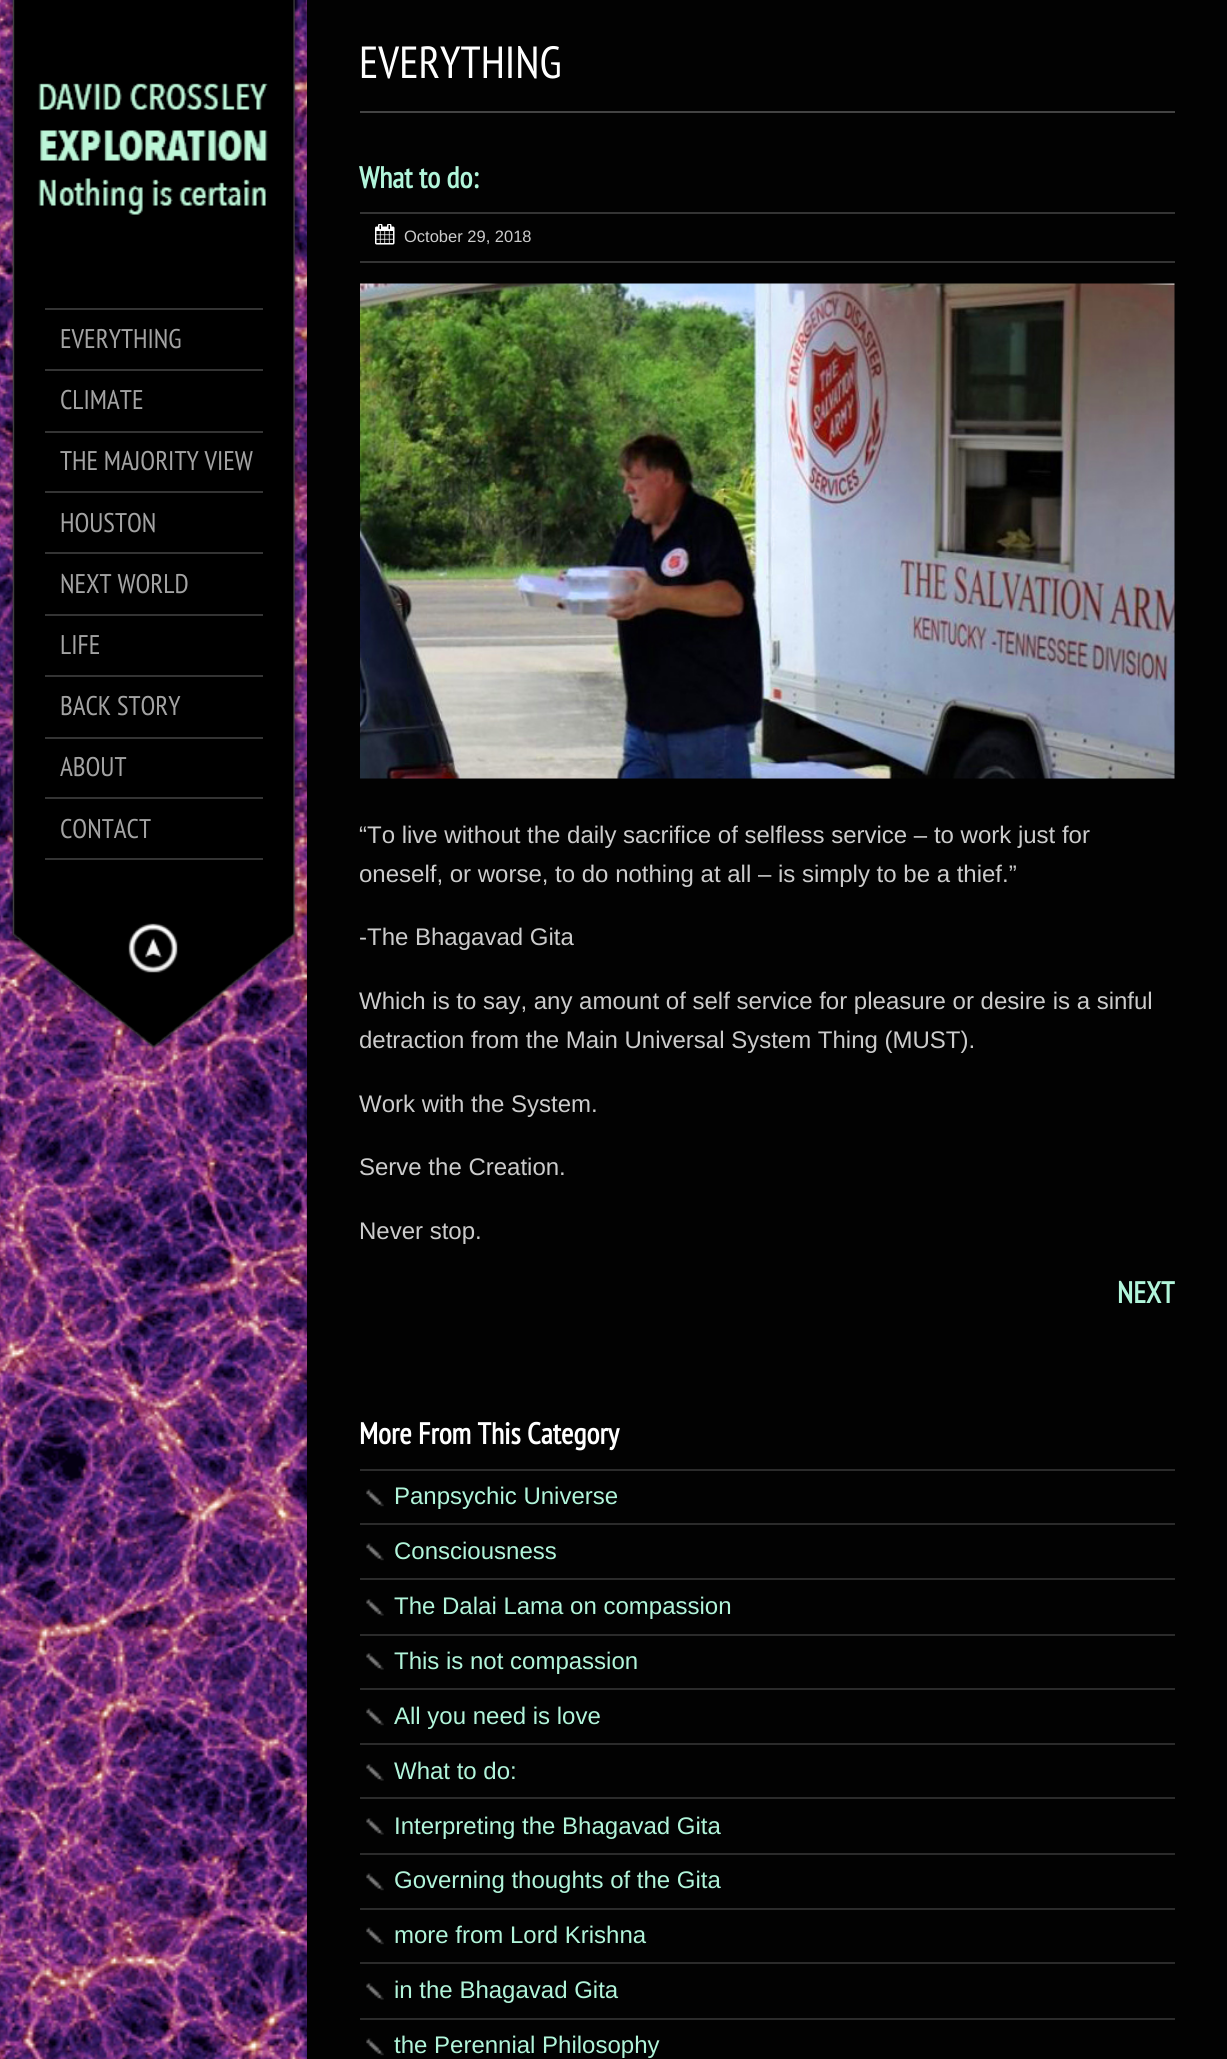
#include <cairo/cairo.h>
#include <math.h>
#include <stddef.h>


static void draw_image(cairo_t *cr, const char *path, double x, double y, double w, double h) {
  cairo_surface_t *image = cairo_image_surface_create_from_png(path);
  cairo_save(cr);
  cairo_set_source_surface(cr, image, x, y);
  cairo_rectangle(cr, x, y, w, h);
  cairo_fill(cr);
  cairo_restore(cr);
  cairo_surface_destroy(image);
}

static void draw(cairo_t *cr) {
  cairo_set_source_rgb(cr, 1, 1, 1);
  cairo_paint(cr);
  draw_image(cr, "images/1.png", 0, 0, 307, 2059);
  cairo_set_source_rgb(cr, 2 / 255.0, 2 / 255.0, 2 / 255.0);
  cairo_rectangle(cr, 307, 0, 920, 2059);
  cairo_fill(cr);
  cairo_set_source_rgb(cr, 67 / 255.0, 67 / 255.0, 67 / 255.0);
  cairo_rectangle(cr, 360, 111, 815, 2);
  cairo_fill(cr);
  cairo_set_source_rgb(cr, 52 / 255.0, 52 / 255.0, 52 / 255.0);
  cairo_rectangle(cr, 360, 212, 815, 2);
  cairo_fill(cr);
  cairo_rectangle(cr, 360, 261, 815, 2);
  cairo_fill(cr);
  draw_image(cr, "images/2.png", 375, 224, 20, 21);
  draw_image(cr, "images/3.png", 360, 283, 815, 496);
  draw_image(cr, "images/4.png", 366, 1489, 18, 18);
  cairo_set_source_rgb(cr, 43 / 255.0, 43 / 255.0, 43 / 255.0);
  cairo_rectangle(cr, 360, 1469, 815, 2);
  cairo_fill(cr);
  cairo_rectangle(cr, 360, 1523, 815, 2);
  cairo_fill(cr);
  draw_image(cr, "images/4.png", 366, 1543, 18, 18);
  cairo_rectangle(cr, 360, 1578, 815, 2);
  cairo_fill(cr);
  draw_image(cr, "images/5.png", 366, 1599, 18, 17);
  cairo_rectangle(cr, 360, 1634, 815, 2);
  cairo_fill(cr);
  draw_image(cr, "images/5.png", 366, 1653, 18, 17);
  cairo_rectangle(cr, 360, 1688, 815, 2);
  cairo_fill(cr);
  draw_image(cr, "images/4.png", 366, 1708, 18, 18);
  cairo_rectangle(cr, 360, 1743, 815, 2);
  cairo_fill(cr);
  draw_image(cr, "images/5.png", 366, 1764, 18, 17);
  cairo_rectangle(cr, 360, 1797, 815, 2);
  cairo_fill(cr);
  draw_image(cr, "images/5.png", 366, 1818, 18, 17);
  cairo_rectangle(cr, 360, 1853, 815, 2);
  cairo_fill(cr);
  draw_image(cr, "images/4.png", 366, 1873, 18, 18);
  cairo_rectangle(cr, 360, 1908, 815, 2);
  cairo_fill(cr);
  draw_image(cr, "images/4.png", 366, 1927, 18, 18);
  cairo_rectangle(cr, 360, 1962, 815, 2);
  cairo_fill(cr);
  draw_image(cr, "images/5.png", 366, 1983, 18, 17);
  cairo_rectangle(cr, 360, 2018, 815, 2);
  cairo_fill(cr);
  draw_image(cr, "images/4.png", 366, 2038, 18, 18);
  draw_image(cr, "images/6.png", 9, 0, 289, 912);
  draw_image(cr, "images/7.png", 38, 83, 230, 132);
  cairo_set_source_rgb(cr, 52 / 255.0, 52 / 255.0, 52 / 255.0);
  cairo_rectangle(cr, 45, 308, 218, 2);
  cairo_fill(cr);
  cairo_rectangle(cr, 45, 369, 218, 2);
  cairo_fill(cr);
  cairo_rectangle(cr, 45, 431, 218, 2);
  cairo_fill(cr);
  cairo_rectangle(cr, 45, 491, 218, 2);
  cairo_fill(cr);
  cairo_rectangle(cr, 45, 552, 218, 2);
  cairo_fill(cr);
  cairo_rectangle(cr, 45, 614, 218, 2);
  cairo_fill(cr);
  cairo_rectangle(cr, 45, 675, 218, 2);
  cairo_fill(cr);
  cairo_rectangle(cr, 45, 737, 218, 2);
  cairo_fill(cr);
  cairo_rectangle(cr, 45, 797, 218, 2);
  cairo_fill(cr);
  cairo_rectangle(cr, 45, 858, 218, 2);
  cairo_fill(cr);
  draw_image(cr, "images/8.png", 10, 912, 288, 138);
  draw_image(cr, "images/9.png", 128, 923, 50, 50);
  cairo_select_font_face(cr, "PT Sans Narrow", CAIRO_FONT_SLANT_NORMAL, CAIRO_FONT_WEIGHT_NORMAL);
  cairo_set_font_size(cr, 45);
  cairo_set_source_rgb(cr, 1, 1, 1);
  cairo_move_to(cr, 359, 78);
  cairo_show_text(cr, "EVERYTHING");
  cairo_select_font_face(cr, "PT Sans Narrow", CAIRO_FONT_SLANT_NORMAL, CAIRO_FONT_WEIGHT_BOLD);
  cairo_set_font_size(cr, 30);
  cairo_set_source_rgb(cr, 177 / 255.0, 245 / 255.0, 218 / 255.0);
  cairo_move_to(cr, 359, 188);
  cairo_show_text(cr, "What to do:");
  cairo_select_font_face(cr, "Liberation Sans", CAIRO_FONT_SLANT_NORMAL, CAIRO_FONT_WEIGHT_NORMAL);
  cairo_set_font_size(cr, 16.5);
  cairo_set_source_rgb(cr, 204 / 255.0, 204 / 255.0, 204 / 255.0);
  cairo_move_to(cr, 404, 242);
  cairo_show_text(cr, "October 29, 2018");
  cairo_set_font_size(cr, 24);
  cairo_move_to(cr, 359, 843);
  cairo_show_text(cr, "“To live without the daily sacrifice of selfless service – to work just for");
  cairo_move_to(cr, 359, 882);
  cairo_show_text(cr, "oneself, or worse, to do nothing at all – is simply to be a thief.”");
  cairo_move_to(cr, 359, 945);
  cairo_show_text(cr, "-The Bhagavad Gita");
  cairo_move_to(cr, 359, 1009);
  cairo_show_text(cr, "Which is to say, any amount of self service for pleasure or desire is a sinful");
  cairo_move_to(cr, 359, 1048);
  cairo_show_text(cr, "detraction from the Main Universal System Thing (MUST).");
  cairo_move_to(cr, 359, 1112);
  cairo_show_text(cr, "Work with the System.");
  cairo_move_to(cr, 359, 1175);
  cairo_show_text(cr, "Serve the Creation.");
  cairo_move_to(cr, 359, 1239);
  cairo_show_text(cr, "Never stop.");
  cairo_select_font_face(cr, "PT Sans Narrow", CAIRO_FONT_SLANT_NORMAL, CAIRO_FONT_WEIGHT_BOLD);
  cairo_set_font_size(cr, 30);
  cairo_set_source_rgb(cr, 177 / 255.0, 245 / 255.0, 218 / 255.0);
  cairo_move_to(cr, 1117, 1303);
  cairo_show_text(cr, "NEXT");
  cairo_set_source_rgb(cr, 1, 1, 1);
  cairo_move_to(cr, 359, 1444);
  cairo_show_text(cr, "More From This Category");
  cairo_select_font_face(cr, "Liberation Sans", CAIRO_FONT_SLANT_NORMAL, CAIRO_FONT_WEIGHT_NORMAL);
  cairo_set_font_size(cr, 24);
  cairo_set_source_rgb(cr, 177 / 255.0, 245 / 255.0, 218 / 255.0);
  cairo_move_to(cr, 394, 1504);
  cairo_show_text(cr, "Panpsychic Universe");
  cairo_move_to(cr, 394, 1559);
  cairo_show_text(cr, "Consciousness");
  cairo_move_to(cr, 394, 1614);
  cairo_show_text(cr, "The Dalai Lama on compassion");
  cairo_move_to(cr, 394, 1669);
  cairo_show_text(cr, "This is not compassion");
  cairo_move_to(cr, 394, 1724);
  cairo_show_text(cr, "All you need is love");
  cairo_move_to(cr, 394, 1779);
  cairo_show_text(cr, "What to do:");
  cairo_move_to(cr, 394, 1834);
  cairo_show_text(cr, "Interpreting the Bhagavad Gita");
  cairo_move_to(cr, 394, 1888);
  cairo_show_text(cr, "Governing thoughts of the Gita");
  cairo_move_to(cr, 394, 1943);
  cairo_show_text(cr, "more from Lord Krishna");
  cairo_move_to(cr, 394, 1998);
  cairo_show_text(cr, "in the Bhagavad Gita");
  cairo_move_to(cr, 394, 2053);
  cairo_show_text(cr, "the Perennial Philosophy");
  cairo_select_font_face(cr, "PT Sans Narrow", CAIRO_FONT_SLANT_NORMAL, CAIRO_FONT_WEIGHT_NORMAL);
  cairo_set_font_size(cr, 27);
  cairo_set_source_rgb(cr, 163 / 255.0, 163 / 255.0, 163 / 255.0);
  cairo_move_to(cr, 60, 348);
  cairo_show_text(cr, "EVERYTHING");
  cairo_move_to(cr, 60, 409);
  cairo_show_text(cr, "CLIMATE");
  cairo_move_to(cr, 60, 470);
  cairo_show_text(cr, "THE MAJORITY VIEW");
  cairo_move_to(cr, 60, 532);
  cairo_show_text(cr, "HOUSTON");
  cairo_move_to(cr, 60, 593);
  cairo_show_text(cr, "NEXT WORLD");
  cairo_move_to(cr, 60, 654);
  cairo_show_text(cr, "LIFE");
  cairo_move_to(cr, 60, 715);
  cairo_show_text(cr, "BACK STORY");
  cairo_move_to(cr, 60, 776);
  cairo_show_text(cr, "ABOUT");
  cairo_move_to(cr, 60, 838);
  cairo_show_text(cr, "CONTACT");
}

int main(void) {
  cairo_surface_t *surface = cairo_image_surface_create(CAIRO_FORMAT_RGB24, 1227, 2059);
  cairo_t *cr = cairo_create(surface);
  cairo_font_options_t *options = cairo_font_options_create();
  cairo_font_options_set_hint_metrics(options, CAIRO_HINT_METRICS_OFF);
  cairo_font_options_set_hint_style(options, CAIRO_HINT_STYLE_NONE);
  cairo_set_font_options(cr, options);
  cairo_set_miter_limit(cr, 4);
  draw(cr);
  cairo_surface_write_to_png(surface, "out.png");
  cairo_font_options_destroy(options);
  cairo_destroy(cr);
  cairo_surface_destroy(surface);
  return 0;
}
